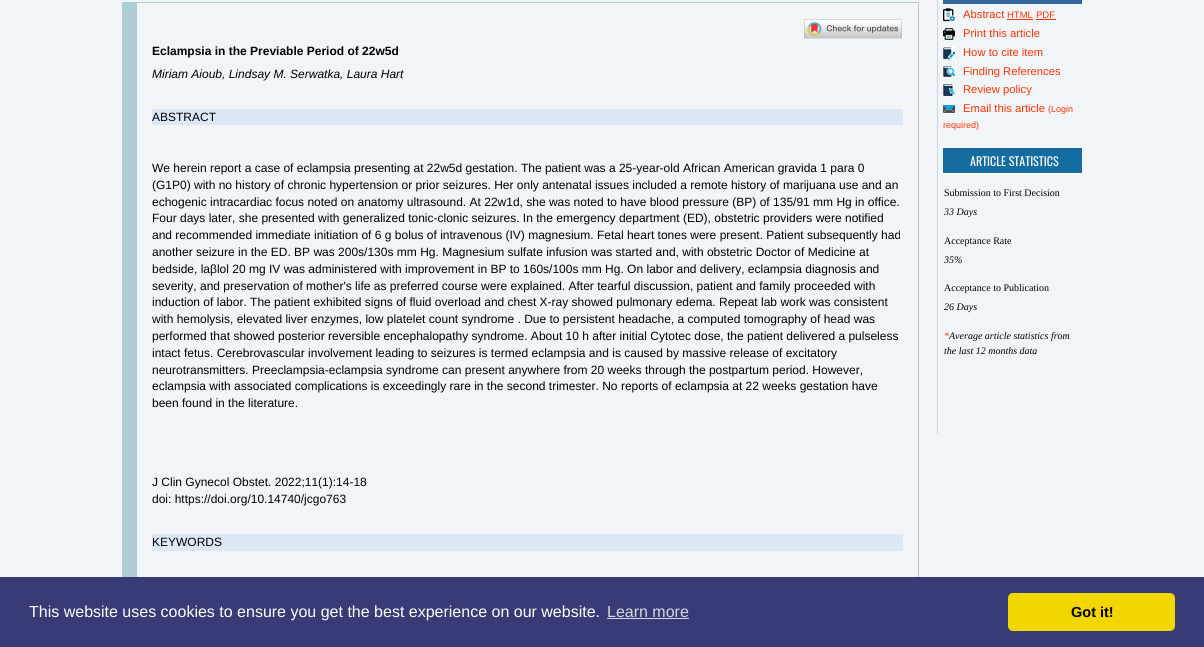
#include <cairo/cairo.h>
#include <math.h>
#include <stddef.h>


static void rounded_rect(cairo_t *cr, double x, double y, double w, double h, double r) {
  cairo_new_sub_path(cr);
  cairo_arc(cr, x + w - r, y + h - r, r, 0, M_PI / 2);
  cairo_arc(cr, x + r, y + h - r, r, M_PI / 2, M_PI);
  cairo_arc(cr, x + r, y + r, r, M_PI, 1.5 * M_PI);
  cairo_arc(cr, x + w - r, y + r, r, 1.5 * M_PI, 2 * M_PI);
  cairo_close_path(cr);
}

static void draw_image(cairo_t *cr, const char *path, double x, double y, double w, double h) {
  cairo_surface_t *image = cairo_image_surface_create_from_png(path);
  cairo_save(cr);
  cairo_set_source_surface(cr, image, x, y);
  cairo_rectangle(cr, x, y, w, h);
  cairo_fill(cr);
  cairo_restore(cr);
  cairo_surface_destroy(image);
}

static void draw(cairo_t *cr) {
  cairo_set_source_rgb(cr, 241 / 255.0, 245 / 255.0, 248 / 255.0);
  cairo_paint(cr);
  cairo_set_source_rgb(cr, 173 / 255.0, 204 / 255.0, 214 / 255.0);
  cairo_rectangle(cr, 137, 2, 782, 1);
  cairo_fill(cr);
  cairo_rectangle(cr, 918, 2, 1, 575);
  cairo_fill(cr);
  cairo_rectangle(cr, 122, 2, 15, 575);
  cairo_fill(cr);
  draw_image(cr, "images/1.png", 804, 19, 98, 20);
  cairo_set_source_rgb(cr, 221 / 255.0, 232 / 255.0, 247 / 255.0);
  cairo_rectangle(cr, 152, 109, 751, 16);
  cairo_fill(cr);
  cairo_rectangle(cr, 152, 534, 751, 17);
  cairo_fill(cr);
  cairo_set_source_rgb(cr, 196 / 255.0, 214 / 255.0, 242 / 255.0);
  cairo_rectangle(cr, 937, 0, 1, 434);
  cairo_fill(cr);
  cairo_set_source_rgb(cr, 51 / 255.0, 102 / 255.0, 153 / 255.0);
  cairo_rectangle(cr, 943, 0, 139, 4);
  cairo_fill(cr);
  draw_image(cr, "images/2.png", 943, 8, 12, 14);
  cairo_set_source_rgb(cr, 1, 51 / 255.0, 0);
  cairo_rectangle(cr, 1007, 19, 26, 1);
  cairo_fill(cr);
  cairo_rectangle(cr, 1036, 19, 20, 1);
  cairo_fill(cr);
  draw_image(cr, "images/3.png", 943, 28, 12, 12);
  draw_image(cr, "images/4.png", 943, 46, 12, 14);
  draw_image(cr, "images/5.png", 943, 66, 12, 11);
  draw_image(cr, "images/6.png", 943, 84, 12, 12);
  draw_image(cr, "images/7.png", 943, 105, 12, 8);
  cairo_set_source_rgb(cr, 21 / 255.0, 108 / 255.0, 161 / 255.0);
  cairo_rectangle(cr, 943, 148, 139, 25);
  cairo_fill(cr);
  cairo_set_source_rgb(cr, 1, 1, 1);
  cairo_rectangle(cr, 943, 173, 139, 1);
  cairo_fill(cr);
  cairo_set_source_rgb(cr, 245 / 255.0, 245 / 255.0, 241 / 255.0);
  cairo_rectangle(cr, 942, 146, 140, 2);
  cairo_fill(cr);
  cairo_rectangle(cr, 943, 202, 139, 1);
  cairo_fill(cr);
  cairo_rectangle(cr, 943, 231, 139, 1);
  cairo_fill(cr);
  cairo_rectangle(cr, 943, 250, 139, 1);
  cairo_fill(cr);
  cairo_rectangle(cr, 943, 278, 139, 1);
  cairo_fill(cr);
  cairo_rectangle(cr, 943, 297, 139, 1);
  cairo_fill(cr);
  cairo_rectangle(cr, 943, 316, 139, 1);
  cairo_fill(cr);
  cairo_rectangle(cr, 943, 360, 139, 1);
  cairo_fill(cr);
  cairo_set_source_rgb(cr, 56 / 255.0, 59 / 255.0, 117 / 255.0);
  cairo_rectangle(cr, 0, 577, 1204, 70);
  cairo_fill(cr);
  cairo_set_source_rgb(cr, 215 / 255.0, 216 / 255.0, 227 / 255.0);
  cairo_rectangle(cr, 607, 618, 82, 1);
  cairo_fill(cr);
  cairo_set_source_rgb(cr, 241 / 255.0, 214 / 255.0, 0);
  rounded_rect(cr, 1008, 593, 167, 38, 5);
  cairo_fill(cr);
  cairo_select_font_face(cr, "Liberation Sans", CAIRO_FONT_SLANT_NORMAL, CAIRO_FONT_WEIGHT_BOLD);
  cairo_set_font_size(cr, 12);
  cairo_set_source_rgb(cr, 0, 0, 0);
  cairo_move_to(cr, 152, 55);
  cairo_show_text(cr, "Eclampsia in the Previable Period of 22w5d");
  cairo_select_font_face(cr, "Liberation Sans", CAIRO_FONT_SLANT_ITALIC, CAIRO_FONT_WEIGHT_NORMAL);
  cairo_move_to(cr, 152, 78);
  cairo_show_text(cr, "Miriam Aioub, Lindsay M. Serwatka, Laura Hart");
  cairo_select_font_face(cr, "Liberation Sans", CAIRO_FONT_SLANT_NORMAL, CAIRO_FONT_WEIGHT_NORMAL);
  cairo_move_to(cr, 152, 121);
  cairo_show_text(cr, "ABSTRACT");
  cairo_move_to(cr, 152, 172);
  cairo_show_text(cr, "We herein report a case of eclampsia presenting at 22w5d gestation. The patient was a 25-year-old African American gravida 1 para 0");
  cairo_move_to(cr, 152, 189);
  cairo_show_text(cr, "(G1P0) with no history of chronic hypertension or prior seizures. Her only antenatal issues included a remote history of marijuana use and an");
  cairo_move_to(cr, 152, 206);
  cairo_show_text(cr, "echogenic intracardiac focus noted on anatomy ultrasound. At 22w1d, she was noted to have blood pressure (BP) of 135/91 mm Hg in office.");
  cairo_move_to(cr, 152, 222);
  cairo_show_text(cr, "Four days later, she presented with generalized tonic-clonic seizures. In the emergency department (ED), obstetric providers were notified");
  cairo_move_to(cr, 152, 239);
  cairo_show_text(cr, "and recommended immediate initiation of 6 g bolus of intravenous (IV) magnesium. Fetal heart tones were present. Patient subsequently had");
  cairo_move_to(cr, 152, 256);
  cairo_show_text(cr, "another seizure in the ED. BP was 200s/130s mm Hg. Magnesium sulfate infusion was started and, with obstetric Doctor of Medicine at");
  cairo_move_to(cr, 152, 273);
  cairo_show_text(cr, "bedside, laβlol 20 mg IV was administered with improvement in BP to 160s/100s mm Hg. On labor and delivery, eclampsia diagnosis and");
  cairo_move_to(cr, 152, 290);
  cairo_show_text(cr, "severity, and preservation of mother's life as preferred course were explained. After tearful discussion, patient and family proceeded with");
  cairo_move_to(cr, 152, 306);
  cairo_show_text(cr, "induction of labor. The patient exhibited signs of fluid overload and chest X-ray showed pulmonary edema. Repeat lab work was consistent");
  cairo_move_to(cr, 152, 323);
  cairo_show_text(cr, "with hemolysis, elevated liver enzymes, low platelet count syndrome . Due to persistent headache, a computed tomography of head was");
  cairo_move_to(cr, 152, 340);
  cairo_show_text(cr, "performed that showed posterior reversible encephalopathy syndrome. About 10 h after initial Cytotec dose, the patient delivered a pulseless");
  cairo_move_to(cr, 152, 357);
  cairo_show_text(cr, "intact fetus. Cerebrovascular involvement leading to seizures is termed eclampsia and is caused by massive release of excitatory");
  cairo_move_to(cr, 152, 374);
  cairo_show_text(cr, "neurotransmitters. Preeclampsia-eclampsia syndrome can present anywhere from 20 weeks through the postpartum period. However,");
  cairo_move_to(cr, 152, 390);
  cairo_show_text(cr, "eclampsia with associated complications is exceedingly rare in the second trimester. No reports of eclampsia at 22 weeks gestation have");
  cairo_move_to(cr, 152, 407);
  cairo_show_text(cr, "been found in the literature.");
  cairo_move_to(cr, 152, 486);
  cairo_show_text(cr, "J Clin Gynecol Obstet. 2022;11(1):14-18");
  cairo_move_to(cr, 152, 503);
  cairo_show_text(cr, "doi: https://doi.org/10.14740/jcgo763");
  cairo_move_to(cr, 152, 546);
  cairo_show_text(cr, "KEYWORDS");
  cairo_set_font_size(cr, 11.25);
  cairo_set_source_rgb(cr, 1, 51 / 255.0, 0);
  cairo_move_to(cr, 963, 18);
  cairo_show_text(cr, "Abstract");
  cairo_set_font_size(cr, 9.5);
  cairo_move_to(cr, 1007, 18);
  cairo_show_text(cr, "HTML");
  cairo_move_to(cr, 1036, 18);
  cairo_show_text(cr, "PDF");
  cairo_set_font_size(cr, 11.25);
  cairo_move_to(cr, 963, 37);
  cairo_show_text(cr, "Print this article");
  cairo_move_to(cr, 963, 56);
  cairo_show_text(cr, "How to cite item");
  cairo_move_to(cr, 963, 75);
  cairo_show_text(cr, "Finding References");
  cairo_move_to(cr, 963, 93);
  cairo_show_text(cr, "Review policy");
  cairo_move_to(cr, 963, 112);
  cairo_show_text(cr, "Email this article");
  cairo_set_font_size(cr, 9);
  cairo_move_to(cr, 1048, 112);
  cairo_show_text(cr, "(Login");
  cairo_move_to(cr, 943, 128);
  cairo_show_text(cr, "required)");
  cairo_select_font_face(cr, "Oswald", CAIRO_FONT_SLANT_NORMAL, CAIRO_FONT_WEIGHT_NORMAL);
  cairo_set_font_size(cr, 12);
  cairo_set_source_rgb(cr, 1, 1, 1);
  cairo_move_to(cr, 970, 166);
  cairo_show_text(cr, "ARTICLE STATISTICS");
  cairo_select_font_face(cr, "Liberation Serif", CAIRO_FONT_SLANT_NORMAL, CAIRO_FONT_WEIGHT_NORMAL);
  cairo_set_font_size(cr, 10);
  cairo_set_source_rgb(cr, 0, 0, 0);
  cairo_move_to(cr, 944, 196);
  cairo_show_text(cr, "Submission to First Decision");
  cairo_select_font_face(cr, "Liberation Serif", CAIRO_FONT_SLANT_ITALIC, CAIRO_FONT_WEIGHT_NORMAL);
  cairo_move_to(cr, 944, 215);
  cairo_show_text(cr, "33 Days");
  cairo_select_font_face(cr, "Liberation Serif", CAIRO_FONT_SLANT_NORMAL, CAIRO_FONT_WEIGHT_NORMAL);
  cairo_move_to(cr, 944, 244);
  cairo_show_text(cr, "Acceptance Rate");
  cairo_select_font_face(cr, "Liberation Serif", CAIRO_FONT_SLANT_ITALIC, CAIRO_FONT_WEIGHT_NORMAL);
  cairo_move_to(cr, 944, 263);
  cairo_show_text(cr, "35%");
  cairo_select_font_face(cr, "Liberation Serif", CAIRO_FONT_SLANT_NORMAL, CAIRO_FONT_WEIGHT_NORMAL);
  cairo_move_to(cr, 944, 291);
  cairo_show_text(cr, "Acceptance to Publication");
  cairo_select_font_face(cr, "Liberation Serif", CAIRO_FONT_SLANT_ITALIC, CAIRO_FONT_WEIGHT_NORMAL);
  cairo_move_to(cr, 944, 310);
  cairo_show_text(cr, "26 Days");
  cairo_set_source_rgb(cr, 1, 51 / 255.0, 0);
  cairo_move_to(cr, 944, 339);
  cairo_show_text(cr, "*");
  cairo_set_source_rgb(cr, 0, 0, 0);
  cairo_move_to(cr, 949, 339);
  cairo_show_text(cr, "Average article statistics from");
  cairo_move_to(cr, 944, 354);
  cairo_show_text(cr, "the last 12 months data");
  cairo_select_font_face(cr, "Liberation Sans", CAIRO_FONT_SLANT_NORMAL, CAIRO_FONT_WEIGHT_NORMAL);
  cairo_set_font_size(cr, 16);
  cairo_set_source_rgb(cr, 1, 1, 1);
  cairo_move_to(cr, 29, 617);
  cairo_show_text(cr, "This website uses cookies to ensure you get the best experience on our website.");
  cairo_set_source_rgb(cr, 215 / 255.0, 216 / 255.0, 227 / 255.0);
  cairo_move_to(cr, 607, 617);
  cairo_show_text(cr, "Learn more");
  cairo_select_font_face(cr, "Liberation Sans", CAIRO_FONT_SLANT_NORMAL, CAIRO_FONT_WEIGHT_BOLD);
  cairo_set_font_size(cr, 14.5);
  cairo_set_source_rgb(cr, 0, 0, 0);
  cairo_move_to(cr, 1071, 617);
  cairo_show_text(cr, "Got it!");
}

int main(void) {
  cairo_surface_t *surface = cairo_image_surface_create(CAIRO_FORMAT_RGB24, 1204, 647);
  cairo_t *cr = cairo_create(surface);
  cairo_font_options_t *options = cairo_font_options_create();
  cairo_font_options_set_hint_metrics(options, CAIRO_HINT_METRICS_OFF);
  cairo_font_options_set_hint_style(options, CAIRO_HINT_STYLE_NONE);
  cairo_set_font_options(cr, options);
  cairo_set_miter_limit(cr, 4);
  draw(cr);
  cairo_surface_write_to_png(surface, "out.png");
  cairo_font_options_destroy(options);
  cairo_destroy(cr);
  cairo_surface_destroy(surface);
  return 0;
}
